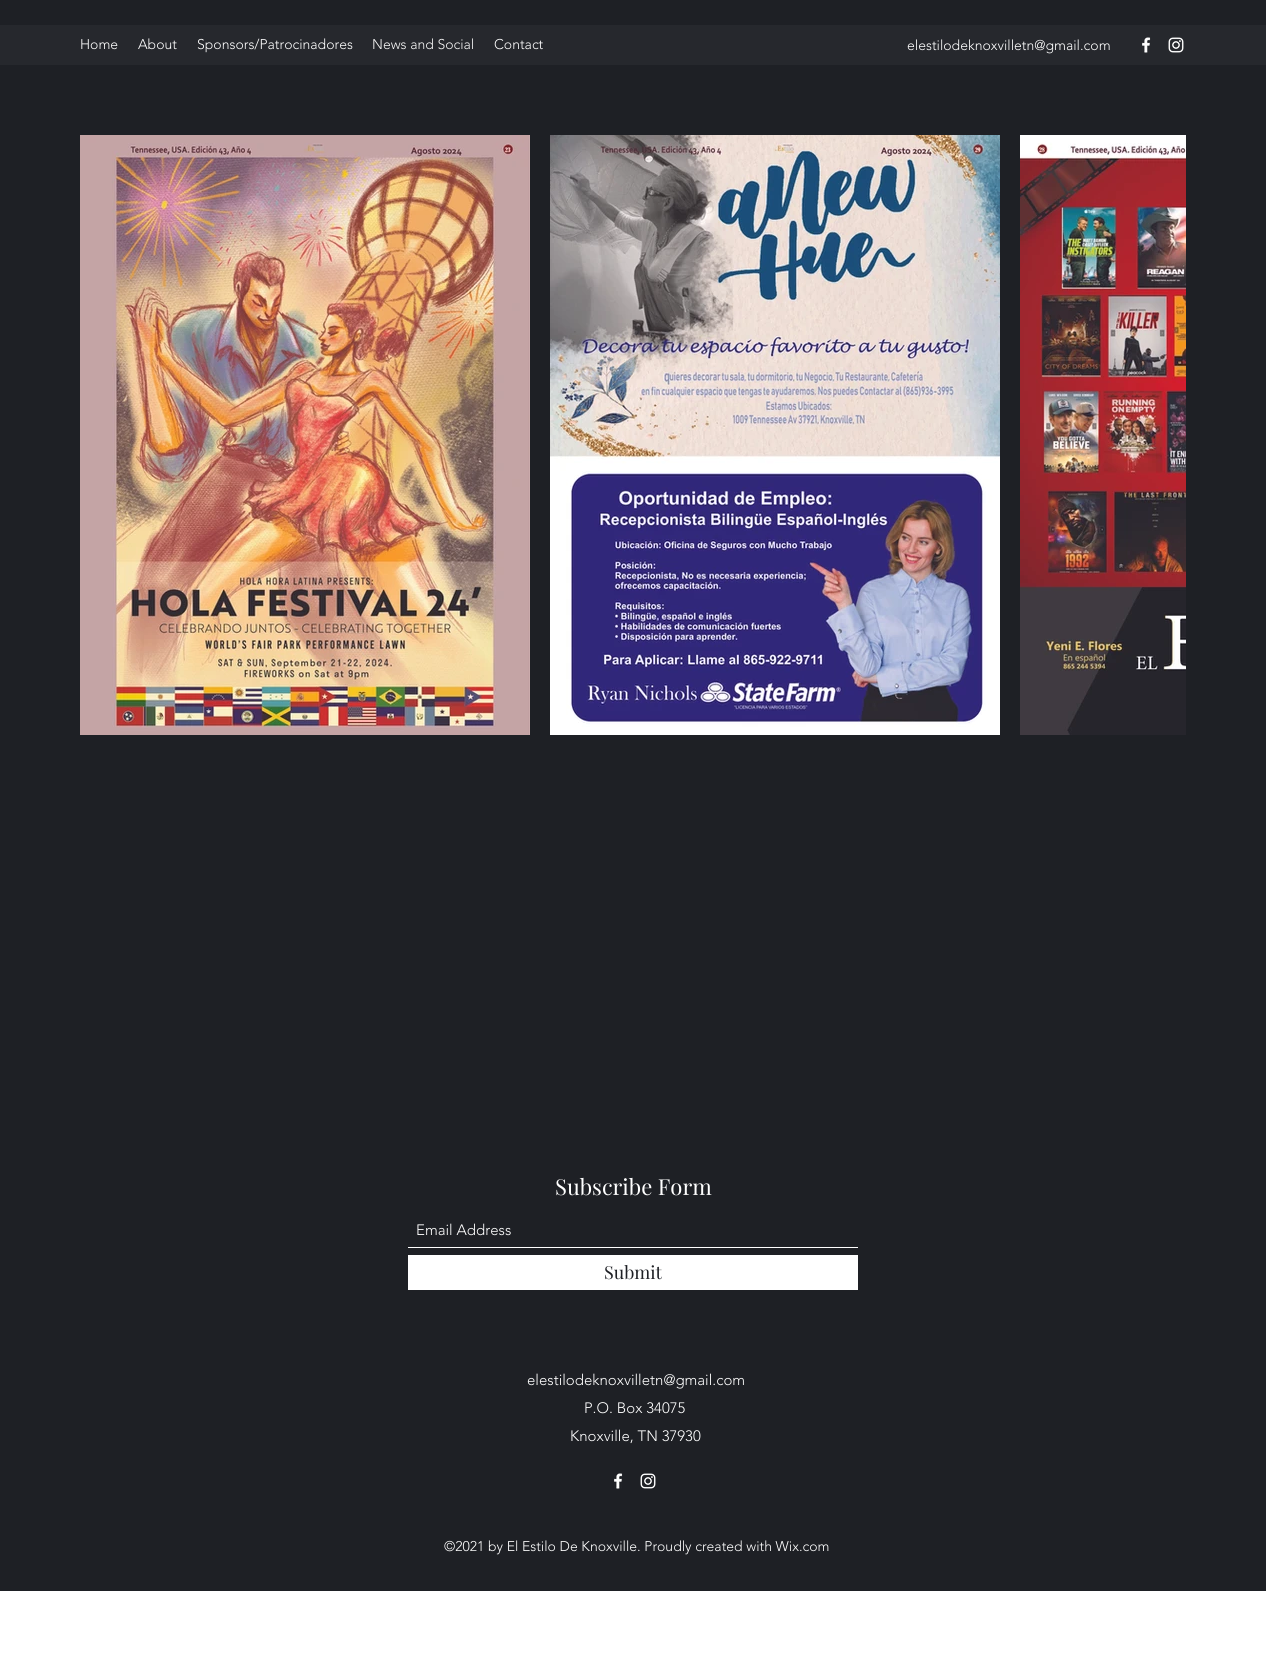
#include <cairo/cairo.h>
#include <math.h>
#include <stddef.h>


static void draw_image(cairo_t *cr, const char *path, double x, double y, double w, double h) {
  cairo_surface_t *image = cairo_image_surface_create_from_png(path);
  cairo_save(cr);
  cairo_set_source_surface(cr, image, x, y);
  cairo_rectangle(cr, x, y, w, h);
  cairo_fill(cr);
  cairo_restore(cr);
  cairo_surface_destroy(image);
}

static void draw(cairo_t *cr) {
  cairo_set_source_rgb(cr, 1, 1, 1);
  cairo_paint(cr);
  cairo_set_source_rgb(cr, 30 / 255.0, 32 / 255.0, 37 / 255.0);
  cairo_rectangle(cr, 0, 0, 1266, 1591);
  cairo_fill(cr);
  draw_image(cr, "images/1.png", 80, 135, 450, 600);
  draw_image(cr, "images/2.png", 550, 135, 450, 600);
  draw_image(cr, "images/3.png", 1020, 135, 166, 600);
  cairo_set_source_rgb(cr, 38 / 255.0, 40 / 255.0, 45 / 255.0);
  cairo_rectangle(cr, 0, 25, 1266, 40);
  cairo_fill(cr);
  draw_image(cr, "images/4.png", 1142, 37, 9, 16);
  draw_image(cr, "images/5.png", 1168, 37, 16, 16);
  cairo_set_source_rgb(cr, 1, 1, 1);
  cairo_rectangle(cr, 408, 1247, 450, 1);
  cairo_fill(cr);
  cairo_rectangle(cr, 408, 1255, 450, 35);
  cairo_fill(cr);
  draw_image(cr, "images/6.png", 614, 1473, 9, 16);
  draw_image(cr, "images/7.png", 640, 1473, 16, 16);
  cairo_select_font_face(cr, "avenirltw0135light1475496 Light", CAIRO_FONT_SLANT_NORMAL, CAIRO_FONT_WEIGHT_NORMAL);
  cairo_set_font_size(cr, 14);
  cairo_move_to(cr, 80, 49);
  cairo_show_text(cr, "Home");
  cairo_move_to(cr, 138, 49);
  cairo_show_text(cr, "About");
  cairo_move_to(cr, 197, 49);
  cairo_show_text(cr, "Sponsors/Patrocinadores");
  cairo_set_source_rgb(cr, 247 / 255.0, 247 / 255.0, 247 / 255.0);
  cairo_move_to(cr, 372, 49);
  cairo_show_text(cr, "News and Social");
  cairo_set_source_rgb(cr, 1, 1, 1);
  cairo_move_to(cr, 494, 49);
  cairo_show_text(cr, "Contact");
  cairo_move_to(cr, 907, 50);
  cairo_show_text(cr, "elestilodeknoxvilletn@gmail.com");
  cairo_select_font_face(cr, "Playfair Display", CAIRO_FONT_SLANT_NORMAL, CAIRO_FONT_WEIGHT_NORMAL);
  cairo_set_font_size(cr, 22);
  cairo_move_to(cr, 555, 1195);
  cairo_show_text(cr, "Subscribe Form");
  cairo_select_font_face(cr, "avenirltw0135light1475496 Light", CAIRO_FONT_SLANT_NORMAL, CAIRO_FONT_WEIGHT_NORMAL);
  cairo_set_font_size(cr, 15);
  cairo_move_to(cr, 416, 1235);
  cairo_show_text(cr, "Email Address");
  cairo_select_font_face(cr, "Playfair Display", CAIRO_FONT_SLANT_NORMAL, CAIRO_FONT_WEIGHT_NORMAL);
  cairo_set_font_size(cr, 18);
  cairo_set_source_rgb(cr, 30 / 255.0, 32 / 255.0, 37 / 255.0);
  cairo_move_to(cr, 604, 1279);
  cairo_show_text(cr, "Submit");
  cairo_select_font_face(cr, "avenirltw0135light1475496 Light", CAIRO_FONT_SLANT_NORMAL, CAIRO_FONT_WEIGHT_NORMAL);
  cairo_set_font_size(cr, 15);
  cairo_set_source_rgb(cr, 1, 1, 1);
  cairo_move_to(cr, 527, 1385);
  cairo_show_text(cr, "elestilodeknoxvilletn@gmail.com");
  cairo_move_to(cr, 584, 1413);
  cairo_show_text(cr, "P.O. Box 34075");
  cairo_move_to(cr, 570, 1441);
  cairo_show_text(cr, "Knoxville, TN 37930");
  cairo_set_font_size(cr, 14);
  cairo_move_to(cr, 444, 1551);
  cairo_show_text(cr, "©2021 by El Estilo De Knoxville. Proudly created with Wix.com");
}

int main(void) {
  cairo_surface_t *surface = cairo_image_surface_create(CAIRO_FORMAT_RGB24, 1266, 1664);
  cairo_t *cr = cairo_create(surface);
  cairo_font_options_t *options = cairo_font_options_create();
  cairo_font_options_set_hint_metrics(options, CAIRO_HINT_METRICS_OFF);
  cairo_font_options_set_hint_style(options, CAIRO_HINT_STYLE_NONE);
  cairo_set_font_options(cr, options);
  cairo_set_miter_limit(cr, 4);
  draw(cr);
  cairo_surface_write_to_png(surface, "out.png");
  cairo_font_options_destroy(options);
  cairo_destroy(cr);
  cairo_surface_destroy(surface);
  return 0;
}
